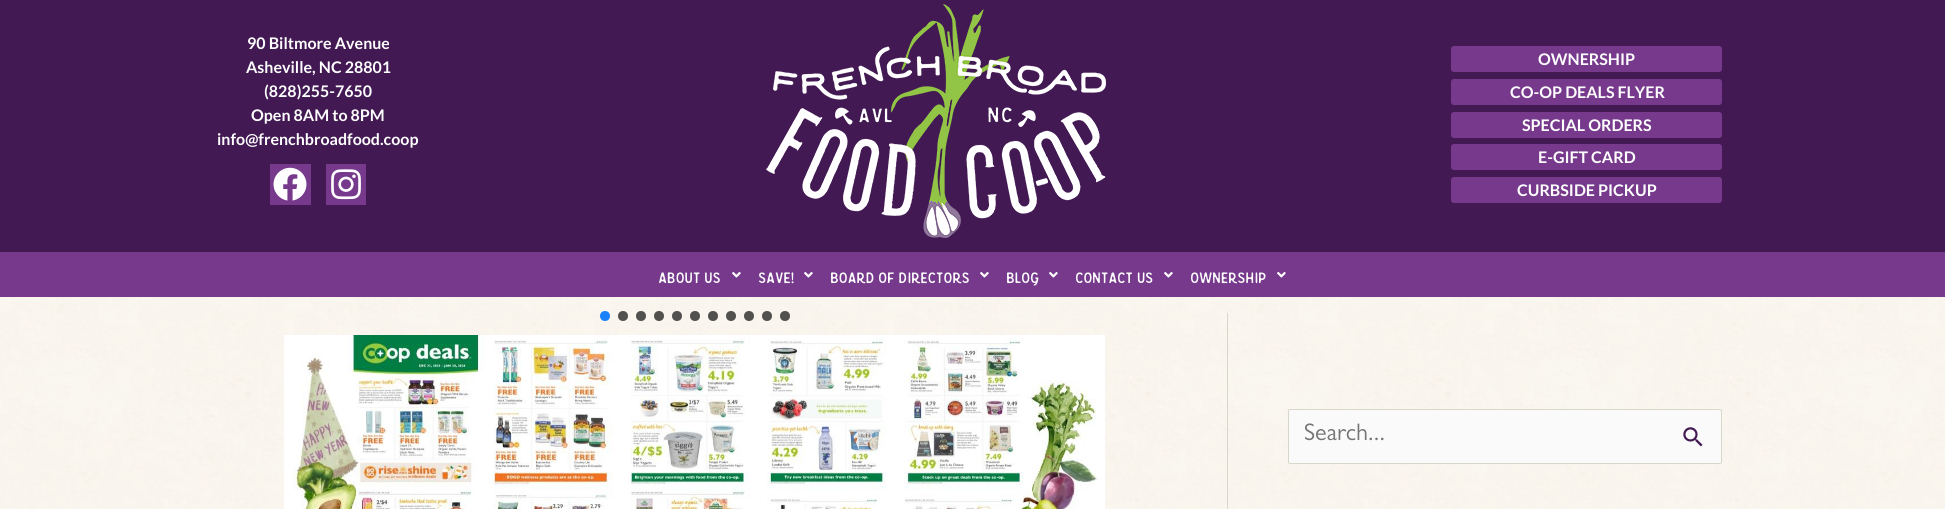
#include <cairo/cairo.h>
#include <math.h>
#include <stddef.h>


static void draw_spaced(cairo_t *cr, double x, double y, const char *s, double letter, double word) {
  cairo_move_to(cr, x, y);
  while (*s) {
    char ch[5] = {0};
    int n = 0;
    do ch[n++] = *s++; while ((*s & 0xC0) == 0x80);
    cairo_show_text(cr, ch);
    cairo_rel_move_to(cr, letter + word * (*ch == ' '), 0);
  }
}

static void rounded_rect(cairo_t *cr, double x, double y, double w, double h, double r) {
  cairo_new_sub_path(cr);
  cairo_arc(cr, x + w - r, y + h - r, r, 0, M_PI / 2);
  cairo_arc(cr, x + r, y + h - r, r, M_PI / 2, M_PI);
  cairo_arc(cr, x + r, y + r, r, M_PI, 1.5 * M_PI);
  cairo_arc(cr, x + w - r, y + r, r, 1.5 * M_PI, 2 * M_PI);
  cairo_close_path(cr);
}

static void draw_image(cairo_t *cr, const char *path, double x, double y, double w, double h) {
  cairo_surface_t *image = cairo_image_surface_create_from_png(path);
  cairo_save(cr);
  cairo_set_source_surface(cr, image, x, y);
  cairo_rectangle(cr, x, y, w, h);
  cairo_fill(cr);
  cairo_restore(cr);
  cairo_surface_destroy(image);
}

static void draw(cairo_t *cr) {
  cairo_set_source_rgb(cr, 1, 1, 1);
  cairo_paint(cr);
  draw_image(cr, "images/1.png", 0, 297, 1945, 212);
  cairo_set_source_rgb(cr, 66 / 255.0, 25 / 255.0, 83 / 255.0);
  cairo_rectangle(cr, 0, 0, 1945, 252);
  cairo_fill(cr);
  cairo_set_source_rgb(cr, 118 / 255.0, 57 / 255.0, 140 / 255.0);
  cairo_rectangle(cr, 270, 164, 41, 41);
  cairo_fill(cr);
  draw_image(cr, "images/2.png", 273, 167, 34, 34);
  cairo_rectangle(cr, 326, 164, 40, 41);
  cairo_fill(cr);
  draw_image(cr, "images/3.png", 331, 169, 30, 31);
  draw_image(cr, "images/4.png", 766, 4, 340, 234);
  rounded_rect(cr, 1450, 45, 273, 28, 4);
  cairo_fill_preserve(cr);
  cairo_set_source_rgb(cr, 66 / 255.0, 25 / 255.0, 83 / 255.0);
  cairo_stroke(cr);
  cairo_set_source_rgb(cr, 118 / 255.0, 57 / 255.0, 140 / 255.0);
  rounded_rect(cr, 1450, 78, 273, 28, 4);
  cairo_fill_preserve(cr);
  cairo_set_source_rgb(cr, 66 / 255.0, 25 / 255.0, 83 / 255.0);
  cairo_stroke(cr);
  cairo_set_source_rgb(cr, 118 / 255.0, 57 / 255.0, 140 / 255.0);
  rounded_rect(cr, 1450, 111, 273, 28, 4);
  cairo_fill_preserve(cr);
  cairo_set_source_rgb(cr, 66 / 255.0, 25 / 255.0, 83 / 255.0);
  cairo_stroke(cr);
  cairo_set_source_rgb(cr, 118 / 255.0, 57 / 255.0, 140 / 255.0);
  rounded_rect(cr, 1450, 143, 273, 28, 4);
  cairo_fill_preserve(cr);
  cairo_set_source_rgb(cr, 66 / 255.0, 25 / 255.0, 83 / 255.0);
  cairo_stroke(cr);
  cairo_set_source_rgb(cr, 118 / 255.0, 57 / 255.0, 140 / 255.0);
  rounded_rect(cr, 1450, 176, 273, 28, 4);
  cairo_fill_preserve(cr);
  cairo_set_source_rgb(cr, 66 / 255.0, 25 / 255.0, 83 / 255.0);
  cairo_stroke(cr);
  cairo_set_source_rgb(cr, 118 / 255.0, 57 / 255.0, 140 / 255.0);
  cairo_rectangle(cr, 0, 252, 1945, 45);
  cairo_fill(cr);
  draw_image(cr, "images/5.png", 732, 272, 9, 6);
  draw_image(cr, "images/5.png", 804, 272, 9, 6);
  draw_image(cr, "images/5.png", 980, 272, 9, 6);
  draw_image(cr, "images/5.png", 1049, 272, 9, 6);
  draw_image(cr, "images/5.png", 1164, 272, 9, 6);
  draw_image(cr, "images/5.png", 1277, 272, 9, 6);
  cairo_set_source_rgb(cr, 216 / 255.0, 216 / 255.0, 202 / 255.0);
  cairo_rectangle(cr, 1227, 313, 1, 196);
  cairo_fill(cr);
  cairo_set_source_rgb(cr, 29 / 255.0, 129 / 255.0, 249 / 255.0);
  cairo_arc(cr, 605, 316, 5, 0, 2 * M_PI);
  cairo_fill(cr);
  cairo_set_source_rgb(cr, 83 / 255.0, 81 / 255.0, 79 / 255.0);
  cairo_arc(cr, 623, 316, 5, 0, 2 * M_PI);
  cairo_fill(cr);
  cairo_arc(cr, 641, 316, 5, 0, 2 * M_PI);
  cairo_fill(cr);
  cairo_set_source_rgba(cr, 0, 0, 0, 0.67);
  cairo_arc(cr, 659, 316, 5, 0, 2 * M_PI);
  cairo_fill(cr);
  cairo_set_source_rgb(cr, 82 / 255.0, 81 / 255.0, 79 / 255.0);
  cairo_arc(cr, 677, 316, 5, 0, 2 * M_PI);
  cairo_fill(cr);
  cairo_set_source_rgba(cr, 0, 0, 0, 0.67);
  cairo_arc(cr, 695, 316, 5, 0, 2 * M_PI);
  cairo_fill(cr);
  cairo_set_source_rgb(cr, 82 / 255.0, 81 / 255.0, 79 / 255.0);
  cairo_arc(cr, 713, 316, 5, 0, 2 * M_PI);
  cairo_fill(cr);
  cairo_set_source_rgba(cr, 0, 0, 0, 0.67);
  cairo_arc(cr, 731, 316, 5, 0, 2 * M_PI);
  cairo_fill(cr);
  cairo_arc(cr, 749, 316, 5, 0, 2 * M_PI);
  cairo_fill(cr);
  cairo_set_source_rgb(cr, 82 / 255.0, 81 / 255.0, 79 / 255.0);
  cairo_arc(cr, 767, 316, 5, 0, 2 * M_PI);
  cairo_fill(cr);
  cairo_set_source_rgb(cr, 82 / 255.0, 81 / 255.0, 78 / 255.0);
  cairo_arc(cr, 785, 316, 5, 0, 2 * M_PI);
  cairo_fill(cr);
  draw_image(cr, "images/6.png", 284, 335, 821, 174);
  cairo_set_source_rgb(cr, 250 / 255.0, 250 / 255.0, 250 / 255.0);
  rounded_rect(cr, 1288.5, 409.5, 433, 54, 1.5);
  cairo_fill_preserve(cr);
  cairo_set_source_rgb(cr, 216 / 255.0, 216 / 255.0, 202 / 255.0);
  cairo_set_line_width(cr, 1);
  cairo_stroke(cr);
  draw_image(cr, "images/7.png", 1305, 423, 79, 18);
  draw_image(cr, "images/8.png", 1683, 427, 20, 20);
  cairo_select_font_face(cr, "Lato", CAIRO_FONT_SLANT_NORMAL, CAIRO_FONT_WEIGHT_BOLD);
  cairo_set_font_size(cr, 16);
  cairo_set_source_rgb(cr, 253 / 255.0, 253 / 255.0, 253 / 255.0);
  cairo_move_to(cr, 247, 49);
  cairo_show_text(cr, "90 Biltmore Avenue");
  cairo_move_to(cr, 246, 73);
  cairo_show_text(cr, "Asheville, NC 28801");
  cairo_move_to(cr, 264, 97);
  cairo_show_text(cr, "(828)255-7650");
  cairo_move_to(cr, 251, 121);
  cairo_show_text(cr, "Open 8AM to 8PM");
  cairo_move_to(cr, 217, 145);
  cairo_show_text(cr, "info@frenchbroadfood.coop");
  cairo_move_to(cr, 1538, 65);
  cairo_show_text(cr, "OWNERSHIP");
  cairo_move_to(cr, 1510, 98);
  cairo_show_text(cr, "CO-OP DEALS FLYER");
  cairo_move_to(cr, 1522, 131);
  cairo_show_text(cr, "SPECIAL ORDERS");
  cairo_move_to(cr, 1538, 163);
  cairo_show_text(cr, "E-GIFT CARD");
  cairo_move_to(cr, 1517, 196);
  cairo_show_text(cr, "CURBSIDE PICKUP");
  cairo_select_font_face(cr, "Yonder", CAIRO_FONT_SLANT_NORMAL, CAIRO_FONT_WEIGHT_NORMAL);
  cairo_set_font_size(cr, 21);
  draw_spaced(cr, 659, 283, "about us", 0.25, 0);
  draw_spaced(cr, 759, 283, "save!", 0.25, 0);
  draw_spaced(cr, 831, 283, "board of directors", 0.25, 0);
  draw_spaced(cr, 1007, 283, "blog", 0.25, 0);
  draw_spaced(cr, 1076, 283, "contact us", 0.25, 0);
  draw_spaced(cr, 1191, 283, "ownership", 0.25, 0);
}

int main(void) {
  cairo_surface_t *surface = cairo_image_surface_create(CAIRO_FORMAT_RGB24, 1945, 509);
  cairo_t *cr = cairo_create(surface);
  cairo_font_options_t *options = cairo_font_options_create();
  cairo_font_options_set_hint_metrics(options, CAIRO_HINT_METRICS_OFF);
  cairo_font_options_set_hint_style(options, CAIRO_HINT_STYLE_NONE);
  cairo_set_font_options(cr, options);
  cairo_set_miter_limit(cr, 4);
  draw(cr);
  cairo_surface_write_to_png(surface, "out.png");
  cairo_font_options_destroy(options);
  cairo_destroy(cr);
  cairo_surface_destroy(surface);
  return 0;
}
